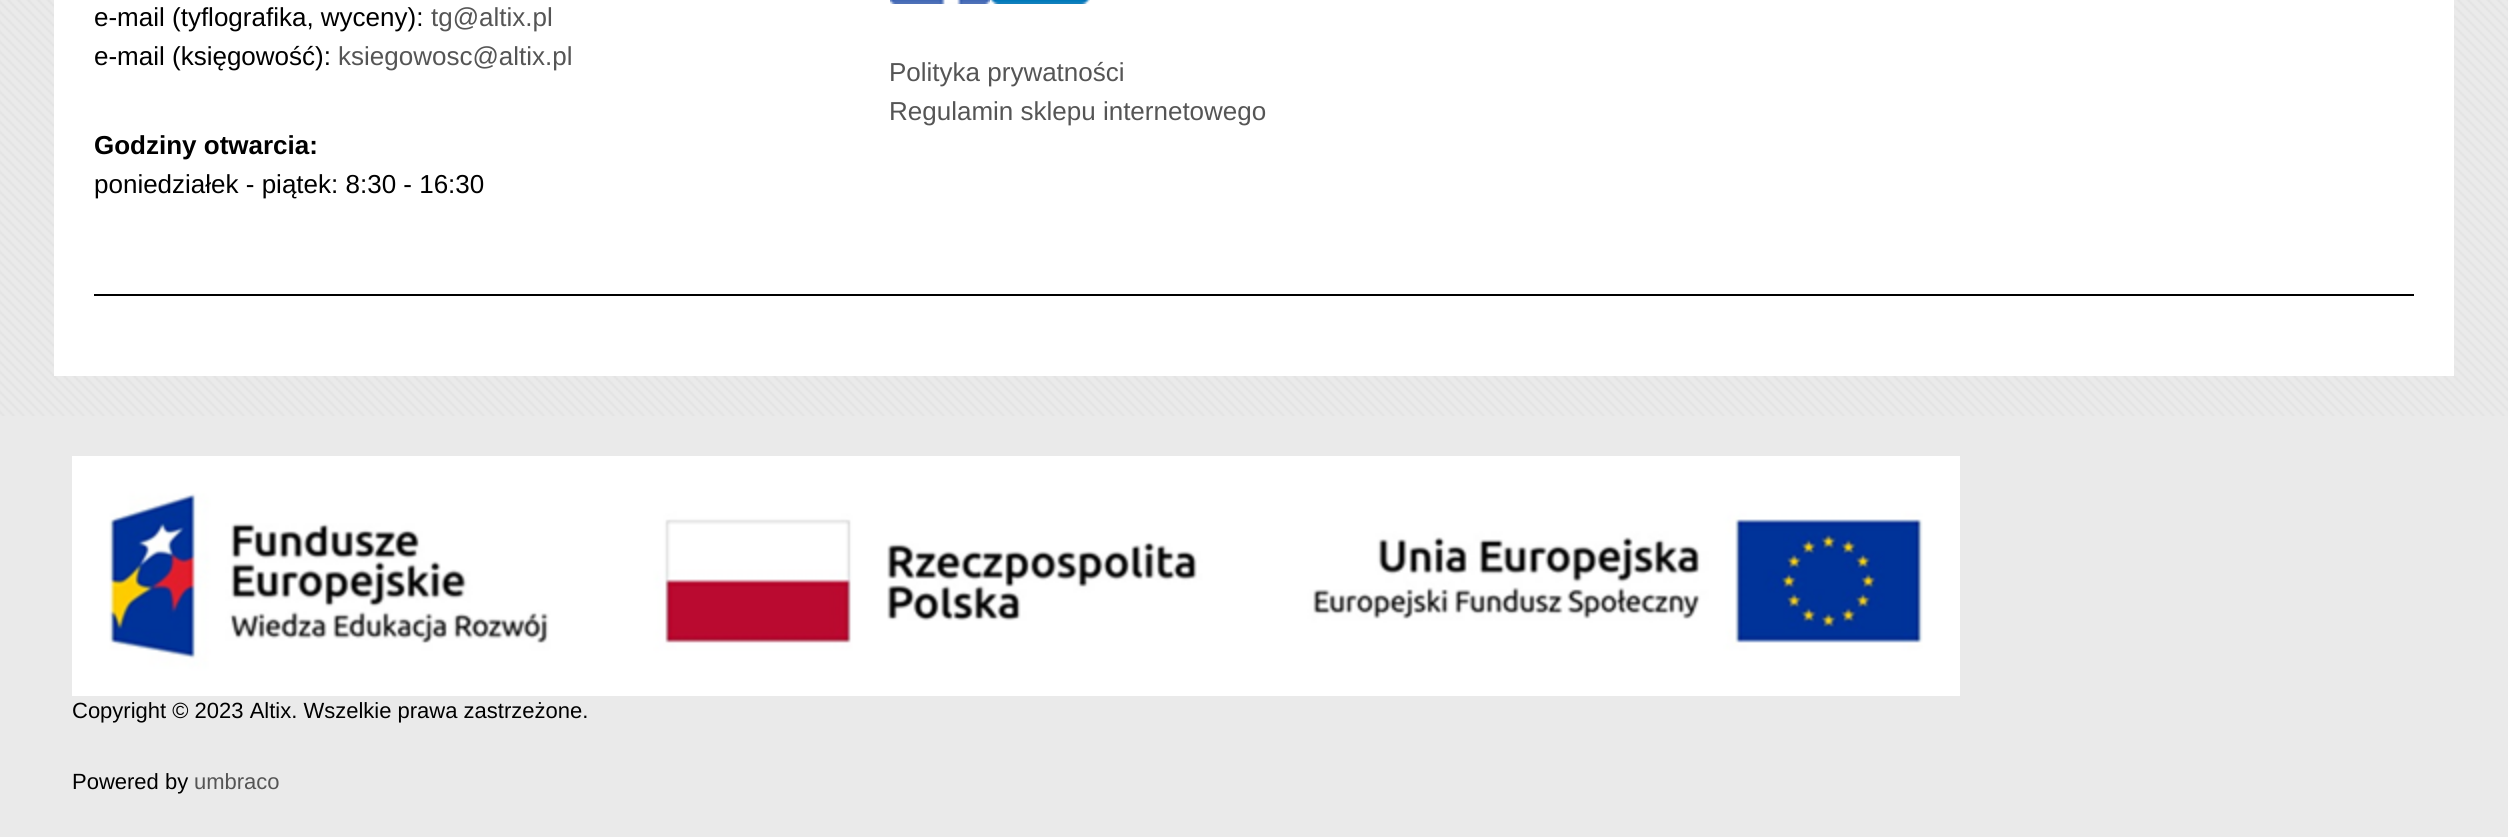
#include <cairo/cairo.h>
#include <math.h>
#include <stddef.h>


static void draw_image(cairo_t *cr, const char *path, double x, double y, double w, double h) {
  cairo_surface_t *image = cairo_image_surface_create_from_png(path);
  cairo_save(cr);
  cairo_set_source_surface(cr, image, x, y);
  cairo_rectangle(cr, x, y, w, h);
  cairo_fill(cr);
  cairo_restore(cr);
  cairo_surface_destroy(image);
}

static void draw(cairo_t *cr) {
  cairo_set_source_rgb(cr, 234 / 255.0, 234 / 255.0, 234 / 255.0);
  cairo_paint(cr);
  draw_image(cr, "images/1.png", 0, 0, 2508, 416);
  cairo_set_source_rgb(cr, 1, 1, 1);
  cairo_rectangle(cr, 54, 0, 2400, 376);
  cairo_fill(cr);
  draw_image(cr, "images/2.png", 890, 0, 100, 4);
  draw_image(cr, "images/3.png", 990, 0, 100, 4);
  cairo_set_source_rgb(cr, 0, 0, 0);
  cairo_rectangle(cr, 94, 294, 2320, 2);
  cairo_fill(cr);
  draw_image(cr, "images/4.png", 72, 456, 1888, 240);
  cairo_select_font_face(cr, "Liberation Sans", CAIRO_FONT_SLANT_NORMAL, CAIRO_FONT_WEIGHT_NORMAL);
  cairo_set_font_size(cr, 26);
  cairo_move_to(cr, 94, 26);
  cairo_show_text(cr, "e-mail (tyflografika, wyceny):");
  cairo_set_source_rgb(cr, 85 / 255.0, 85 / 255.0, 85 / 255.0);
  cairo_move_to(cr, 431, 26);
  cairo_show_text(cr, "tg@altix.pl");
  cairo_set_source_rgb(cr, 0, 0, 0);
  cairo_move_to(cr, 94, 65);
  cairo_show_text(cr, "e-mail (księgowość):");
  cairo_set_source_rgb(cr, 85 / 255.0, 85 / 255.0, 85 / 255.0);
  cairo_move_to(cr, 338, 65);
  cairo_show_text(cr, "ksiegowosc@altix.pl");
  cairo_select_font_face(cr, "Liberation Sans", CAIRO_FONT_SLANT_NORMAL, CAIRO_FONT_WEIGHT_BOLD);
  cairo_set_source_rgb(cr, 0, 0, 0);
  cairo_move_to(cr, 94, 154);
  cairo_show_text(cr, "Godziny otwarcia:");
  cairo_select_font_face(cr, "Liberation Sans", CAIRO_FONT_SLANT_NORMAL, CAIRO_FONT_WEIGHT_NORMAL);
  cairo_move_to(cr, 94, 193);
  cairo_show_text(cr, "poniedziałek - piątek: 8:30 - 16:30");
  cairo_set_source_rgb(cr, 85 / 255.0, 85 / 255.0, 85 / 255.0);
  cairo_move_to(cr, 889, 81);
  cairo_show_text(cr, "Polityka prywatności");
  cairo_move_to(cr, 889, 120);
  cairo_show_text(cr, "Regulamin sklepu internetowego");
  cairo_set_font_size(cr, 22);
  cairo_set_source_rgb(cr, 0, 0, 0);
  cairo_move_to(cr, 72, 718);
  cairo_show_text(cr, "Copyright © 2023 Altix. Wszelkie prawa zastrzeżone.");
  cairo_move_to(cr, 72, 789);
  cairo_show_text(cr, "Powered by");
  cairo_set_source_rgb(cr, 85 / 255.0, 85 / 255.0, 85 / 255.0);
  cairo_move_to(cr, 194, 789);
  cairo_show_text(cr, "umbraco");
}

int main(void) {
  cairo_surface_t *surface = cairo_image_surface_create(CAIRO_FORMAT_RGB24, 2508, 837);
  cairo_t *cr = cairo_create(surface);
  cairo_font_options_t *options = cairo_font_options_create();
  cairo_font_options_set_hint_metrics(options, CAIRO_HINT_METRICS_OFF);
  cairo_font_options_set_hint_style(options, CAIRO_HINT_STYLE_NONE);
  cairo_set_font_options(cr, options);
  cairo_set_miter_limit(cr, 4);
  draw(cr);
  cairo_surface_write_to_png(surface, "out.png");
  cairo_font_options_destroy(options);
  cairo_destroy(cr);
  cairo_surface_destroy(surface);
  return 0;
}
